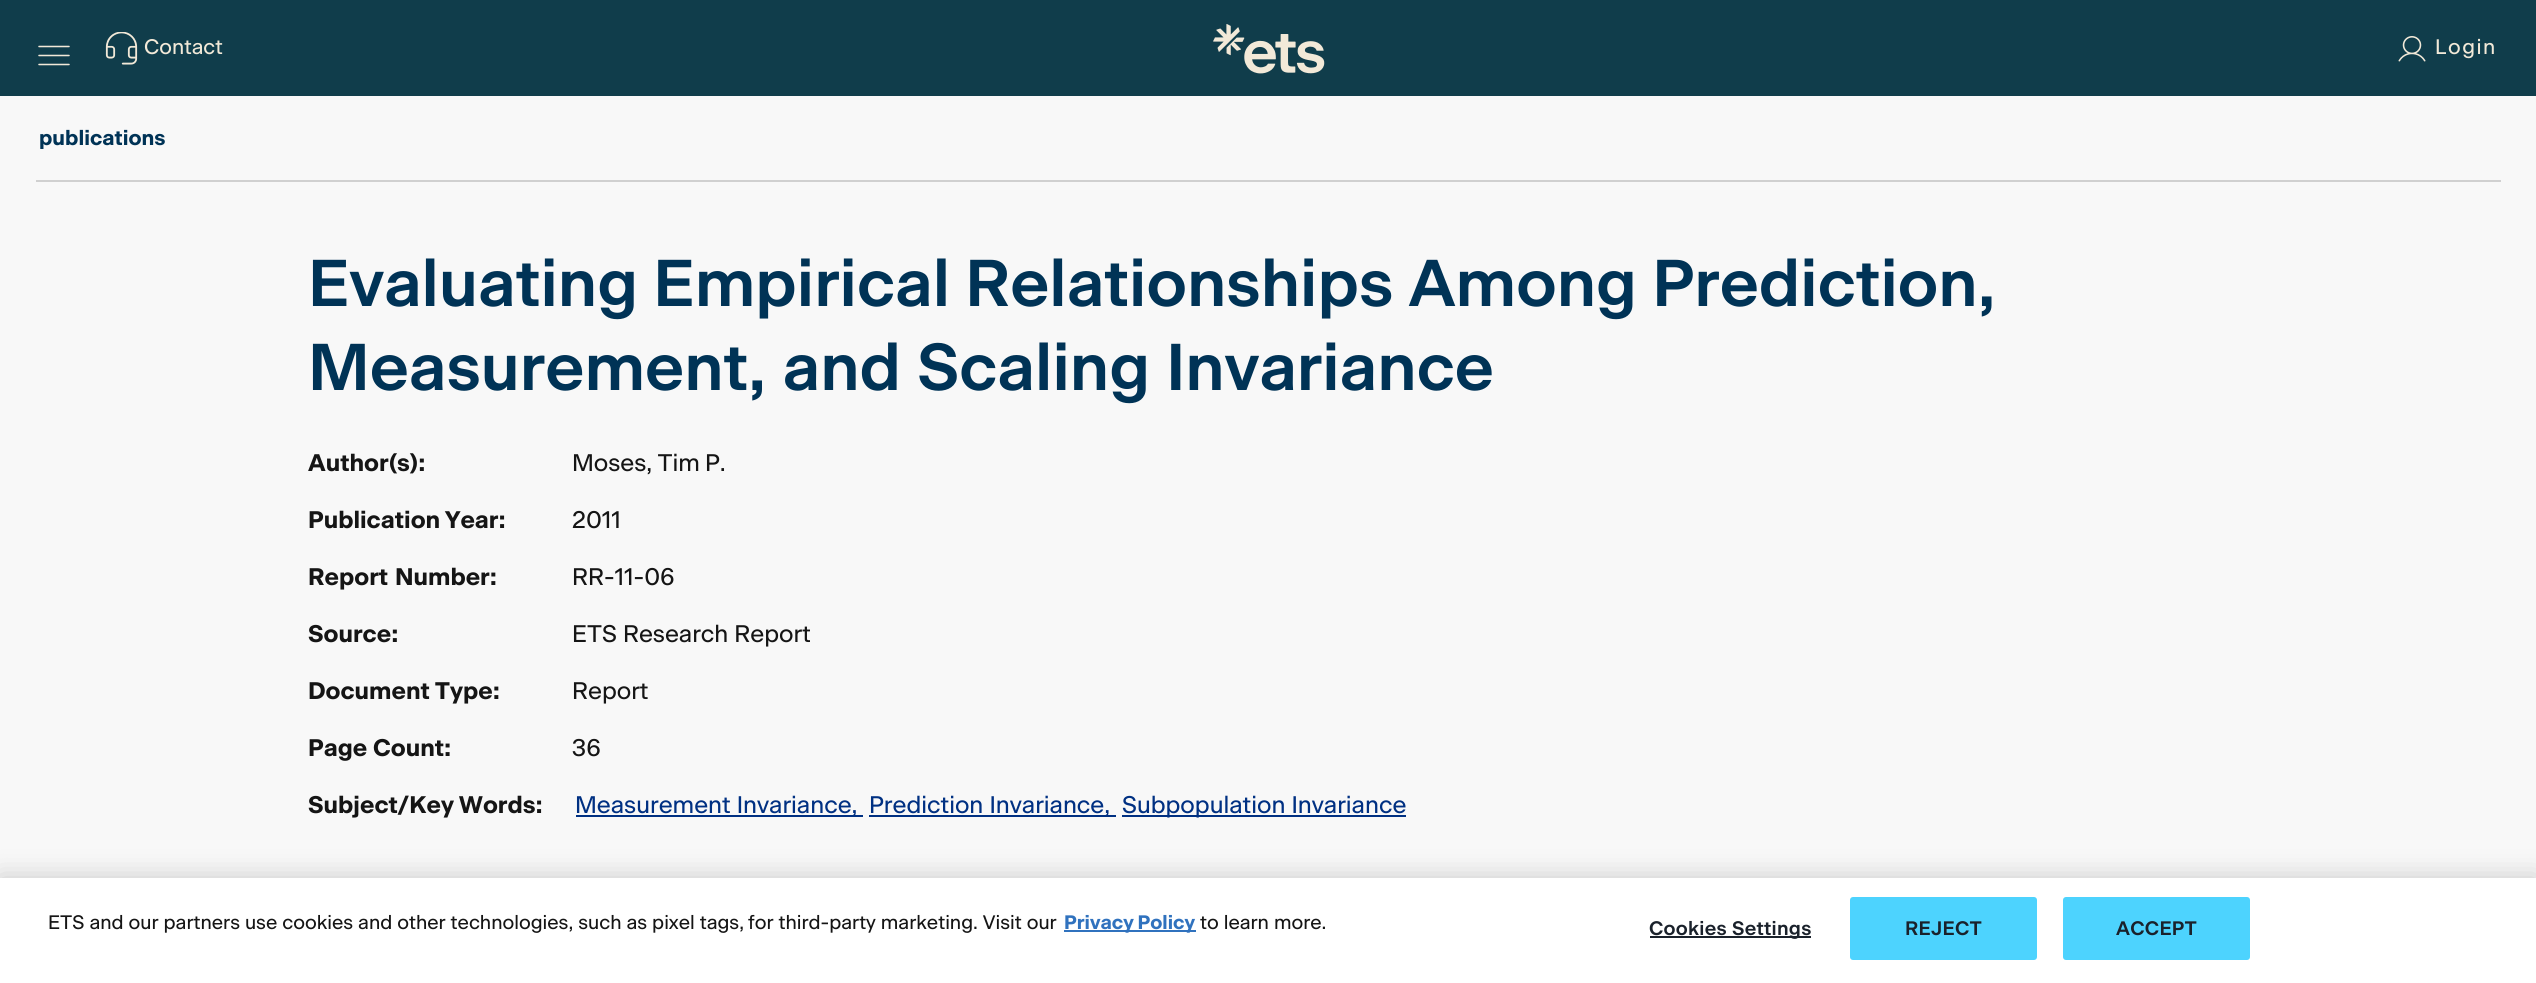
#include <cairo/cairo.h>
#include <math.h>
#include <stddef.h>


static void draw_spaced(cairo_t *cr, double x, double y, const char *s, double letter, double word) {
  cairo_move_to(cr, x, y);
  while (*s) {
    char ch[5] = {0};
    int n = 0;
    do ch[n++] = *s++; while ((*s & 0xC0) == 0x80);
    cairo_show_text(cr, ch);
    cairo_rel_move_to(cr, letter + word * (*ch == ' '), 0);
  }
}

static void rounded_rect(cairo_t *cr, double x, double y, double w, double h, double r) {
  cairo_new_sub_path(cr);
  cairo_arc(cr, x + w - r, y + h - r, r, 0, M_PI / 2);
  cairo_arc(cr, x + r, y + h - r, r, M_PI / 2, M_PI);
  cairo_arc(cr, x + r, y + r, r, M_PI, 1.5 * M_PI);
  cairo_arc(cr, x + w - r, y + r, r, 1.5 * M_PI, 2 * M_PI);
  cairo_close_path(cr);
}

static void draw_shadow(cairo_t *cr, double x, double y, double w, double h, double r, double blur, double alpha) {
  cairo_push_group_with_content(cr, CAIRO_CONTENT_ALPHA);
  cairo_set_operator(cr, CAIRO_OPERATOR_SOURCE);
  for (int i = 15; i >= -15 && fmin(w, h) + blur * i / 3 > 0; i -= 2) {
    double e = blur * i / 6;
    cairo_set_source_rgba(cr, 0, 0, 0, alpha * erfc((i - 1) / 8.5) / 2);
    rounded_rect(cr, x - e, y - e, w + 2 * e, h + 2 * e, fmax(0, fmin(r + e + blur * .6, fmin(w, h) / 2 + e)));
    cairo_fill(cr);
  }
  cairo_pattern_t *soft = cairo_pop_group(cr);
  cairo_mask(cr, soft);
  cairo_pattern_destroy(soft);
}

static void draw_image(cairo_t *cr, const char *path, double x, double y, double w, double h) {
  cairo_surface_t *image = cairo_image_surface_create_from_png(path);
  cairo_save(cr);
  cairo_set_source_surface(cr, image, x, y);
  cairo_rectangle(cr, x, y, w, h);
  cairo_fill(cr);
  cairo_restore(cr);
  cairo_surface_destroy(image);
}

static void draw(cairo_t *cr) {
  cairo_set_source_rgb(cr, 248 / 255.0, 248 / 255.0, 248 / 255.0);
  cairo_paint(cr);
  cairo_set_source_rgb(cr, 16 / 255.0, 61 / 255.0, 75 / 255.0);
  cairo_rectangle(cr, 0, 0, 2536, 96);
  cairo_fill(cr);
  cairo_new_path(cr);
  cairo_move_to(cr, 39, 46.5);
  cairo_line_to(cr, 69, 46.5);
  cairo_move_to(cr, 39, 55.5);
  cairo_line_to(cr, 69, 55.5);
  cairo_move_to(cr, 39, 64.5);
  cairo_line_to(cr, 69, 64.5);
  cairo_set_source_rgb(cr, 242 / 255.0, 233 / 255.0, 216 / 255.0);
  cairo_set_line_width(cr, 1.5);
  cairo_set_line_cap(cr, CAIRO_LINE_CAP_ROUND);
  cairo_set_line_join(cr, CAIRO_LINE_JOIN_ROUND);
  cairo_stroke(cr);
  draw_image(cr, "images/1.png", 105, 32, 33, 33);
  draw_image(cr, "images/2.png", 1213, 24, 112, 50);
  draw_image(cr, "images/3.png", 2398, 36, 28, 26);
  cairo_set_source_rgb(cr, 208 / 255.0, 208 / 255.0, 208 / 255.0);
  cairo_rectangle(cr, 36, 180, 2465, 2);
  cairo_fill(cr);
  cairo_set_source_rgb(cr, 0, 48 / 255.0, 130 / 255.0);
  cairo_rectangle(cr, 576, 815, 287, 2);
  cairo_fill(cr);
  cairo_rectangle(cr, 869, 815, 247, 2);
  cairo_fill(cr);
  cairo_rectangle(cr, 1122, 815, 284, 2);
  cairo_fill(cr);
  cairo_set_source_rgb(cr, 0, 0, 0);
  draw_shadow(cr, 0, 878, 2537, 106, 0, 13.5, 0.2);
  cairo_set_source_rgb(cr, 1, 1, 1);
  cairo_rectangle(cr, 0, 878, 2536, 105);
  cairo_fill(cr);
  cairo_set_source_rgb(cr, 48 / 255.0, 114 / 255.0, 190 / 255.0);
  cairo_rectangle(cr, 1064, 930, 132, 2);
  cairo_fill(cr);
  cairo_set_source_rgb(cr, 26 / 255.0, 33 / 255.0, 43 / 255.0);
  cairo_rectangle(cr, 1650, 936, 161, 2);
  cairo_fill(cr);
  cairo_set_source_rgb(cr, 77 / 255.0, 211 / 255.0, 254 / 255.0);
  rounded_rect(cr, 1851, 898, 185, 61, 2);
  cairo_fill_preserve(cr);
  cairo_set_line_width(cr, 2);
  cairo_set_line_cap(cr, CAIRO_LINE_CAP_BUTT);
  cairo_set_line_join(cr, CAIRO_LINE_JOIN_MITER);
  cairo_stroke(cr);
  rounded_rect(cr, 2064, 898, 185, 61, 2);
  cairo_fill_preserve(cr);
  cairo_stroke(cr);
  cairo_select_font_face(cr, "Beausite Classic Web", CAIRO_FONT_SLANT_NORMAL, CAIRO_FONT_WEIGHT_NORMAL);
  cairo_set_font_size(cr, 21);
  cairo_set_source_rgb(cr, 242 / 255.0, 233 / 255.0, 216 / 255.0);
  cairo_move_to(cr, 144, 54);
  cairo_show_text(cr, "Contact");
  draw_spaced(cr, 2435, 54, "Login", 1.5, 0);
  cairo_select_font_face(cr, "Beausite Classic Web", CAIRO_FONT_SLANT_NORMAL, CAIRO_FONT_WEIGHT_BOLD);
  cairo_set_source_rgb(cr, 0, 51 / 255.0, 86 / 255.0);
  cairo_move_to(cr, 39, 145);
  cairo_show_text(cr, "publications");
  cairo_select_font_face(cr, "Beausite Classic Web SemiBold", CAIRO_FONT_SLANT_NORMAL, CAIRO_FONT_WEIGHT_NORMAL);
  cairo_set_font_size(cr, 66);
  draw_spaced(cr, 308, 306, "Evaluating Empirical Relationships Among Prediction,", 0, -1);
  cairo_move_to(cr, 308, 390);
  cairo_show_text(cr, "Measurement, and Scaling Invariance");
  cairo_select_font_face(cr, "Beausite Classic Web", CAIRO_FONT_SLANT_NORMAL, CAIRO_FONT_WEIGHT_BOLD);
  cairo_set_font_size(cr, 24);
  cairo_set_source_rgb(cr, 21 / 255.0, 21 / 255.0, 21 / 255.0);
  cairo_move_to(cr, 308, 471);
  cairo_show_text(cr, "Author(s):");
  cairo_select_font_face(cr, "Beausite Classic Web", CAIRO_FONT_SLANT_NORMAL, CAIRO_FONT_WEIGHT_NORMAL);
  draw_spaced(cr, 572, 471, "Moses, Tim P.", 0, -1);
  cairo_select_font_face(cr, "Beausite Classic Web", CAIRO_FONT_SLANT_NORMAL, CAIRO_FONT_WEIGHT_BOLD);
  draw_spaced(cr, 308, 528, "Publication Year:", 0, -1);
  cairo_select_font_face(cr, "Beausite Classic Web", CAIRO_FONT_SLANT_NORMAL, CAIRO_FONT_WEIGHT_NORMAL);
  cairo_move_to(cr, 572, 528);
  cairo_show_text(cr, "2011");
  cairo_select_font_face(cr, "Beausite Classic Web", CAIRO_FONT_SLANT_NORMAL, CAIRO_FONT_WEIGHT_BOLD);
  draw_spaced(cr, 308, 585, "Report Number:", 0, 1);
  cairo_select_font_face(cr, "Beausite Classic Web", CAIRO_FONT_SLANT_NORMAL, CAIRO_FONT_WEIGHT_NORMAL);
  cairo_move_to(cr, 572, 585);
  cairo_show_text(cr, "RR-11-06");
  cairo_select_font_face(cr, "Beausite Classic Web", CAIRO_FONT_SLANT_NORMAL, CAIRO_FONT_WEIGHT_BOLD);
  cairo_move_to(cr, 308, 642);
  cairo_show_text(cr, "Source:");
  cairo_select_font_face(cr, "Beausite Classic Web", CAIRO_FONT_SLANT_NORMAL, CAIRO_FONT_WEIGHT_NORMAL);
  cairo_move_to(cr, 572, 642);
  cairo_show_text(cr, "ETS Research Report");
  cairo_select_font_face(cr, "Beausite Classic Web", CAIRO_FONT_SLANT_NORMAL, CAIRO_FONT_WEIGHT_BOLD);
  draw_spaced(cr, 308, 699, "Document Type:", 0, -1);
  cairo_select_font_face(cr, "Beausite Classic Web", CAIRO_FONT_SLANT_NORMAL, CAIRO_FONT_WEIGHT_NORMAL);
  cairo_move_to(cr, 572, 699);
  cairo_show_text(cr, "Report");
  cairo_select_font_face(cr, "Beausite Classic Web", CAIRO_FONT_SLANT_NORMAL, CAIRO_FONT_WEIGHT_BOLD);
  cairo_move_to(cr, 308, 756);
  cairo_show_text(cr, "Page Count:");
  cairo_select_font_face(cr, "Beausite Classic Web", CAIRO_FONT_SLANT_NORMAL, CAIRO_FONT_WEIGHT_NORMAL);
  cairo_move_to(cr, 572, 756);
  cairo_show_text(cr, "36");
  cairo_select_font_face(cr, "Beausite Classic Web", CAIRO_FONT_SLANT_NORMAL, CAIRO_FONT_WEIGHT_BOLD);
  draw_spaced(cr, 308, 813, "Subject/Key Words:", 0, -1);
  cairo_select_font_face(cr, "Beausite Classic Web", CAIRO_FONT_SLANT_NORMAL, CAIRO_FONT_WEIGHT_NORMAL);
  cairo_set_source_rgb(cr, 0, 48 / 255.0, 130 / 255.0);
  cairo_move_to(cr, 575, 813);
  cairo_show_text(cr, "Measurement Invariance,");
  cairo_move_to(cr, 869, 813);
  cairo_show_text(cr, "Prediction Invariance,");
  cairo_move_to(cr, 1122, 813);
  cairo_show_text(cr, "Subpopulation Invariance");
  cairo_set_font_size(cr, 19.5);
  cairo_set_source_rgb(cr, 21 / 255.0, 21 / 255.0, 21 / 255.0);
  cairo_move_to(cr, 48, 929);
  cairo_show_text(cr, "ETS and our partners use cookies and other technologies, such as pixel tags,");
  cairo_move_to(cr, 748, 929);
  cairo_show_text(cr, "for third-party marketing. Visit our");
  cairo_select_font_face(cr, "Beausite Classic Web", CAIRO_FONT_SLANT_NORMAL, CAIRO_FONT_WEIGHT_BOLD);
  cairo_set_source_rgb(cr, 48 / 255.0, 114 / 255.0, 190 / 255.0);
  draw_spaced(cr, 1064, 929, "Privacy Policy", 0, -1);
  cairo_select_font_face(cr, "Beausite Classic Web", CAIRO_FONT_SLANT_NORMAL, CAIRO_FONT_WEIGHT_NORMAL);
  cairo_set_source_rgb(cr, 21 / 255.0, 21 / 255.0, 21 / 255.0);
  cairo_move_to(cr, 1200, 929);
  cairo_show_text(cr, "to learn more.");
  cairo_select_font_face(cr, "Beausite Classic Web SemiBold", CAIRO_FONT_SLANT_NORMAL, CAIRO_FONT_WEIGHT_NORMAL);
  cairo_set_source_rgb(cr, 26 / 255.0, 33 / 255.0, 43 / 255.0);
  draw_spaced(cr, 1649, 935, "Cookies Settings", 0.25, 0);
  draw_spaced(cr, 1905, 935, "REJECT", 0.25, 0);
  draw_spaced(cr, 2116, 935, "ACCEPT", 0.25, 0);
}

int main(void) {
  cairo_surface_t *surface = cairo_image_surface_create(CAIRO_FORMAT_RGB24, 2536, 983);
  cairo_t *cr = cairo_create(surface);
  cairo_font_options_t *options = cairo_font_options_create();
  cairo_font_options_set_hint_metrics(options, CAIRO_HINT_METRICS_OFF);
  cairo_font_options_set_hint_style(options, CAIRO_HINT_STYLE_NONE);
  cairo_set_font_options(cr, options);
  cairo_set_miter_limit(cr, 4);
  draw(cr);
  cairo_surface_write_to_png(surface, "out.png");
  cairo_font_options_destroy(options);
  cairo_destroy(cr);
  cairo_surface_destroy(surface);
  return 0;
}
